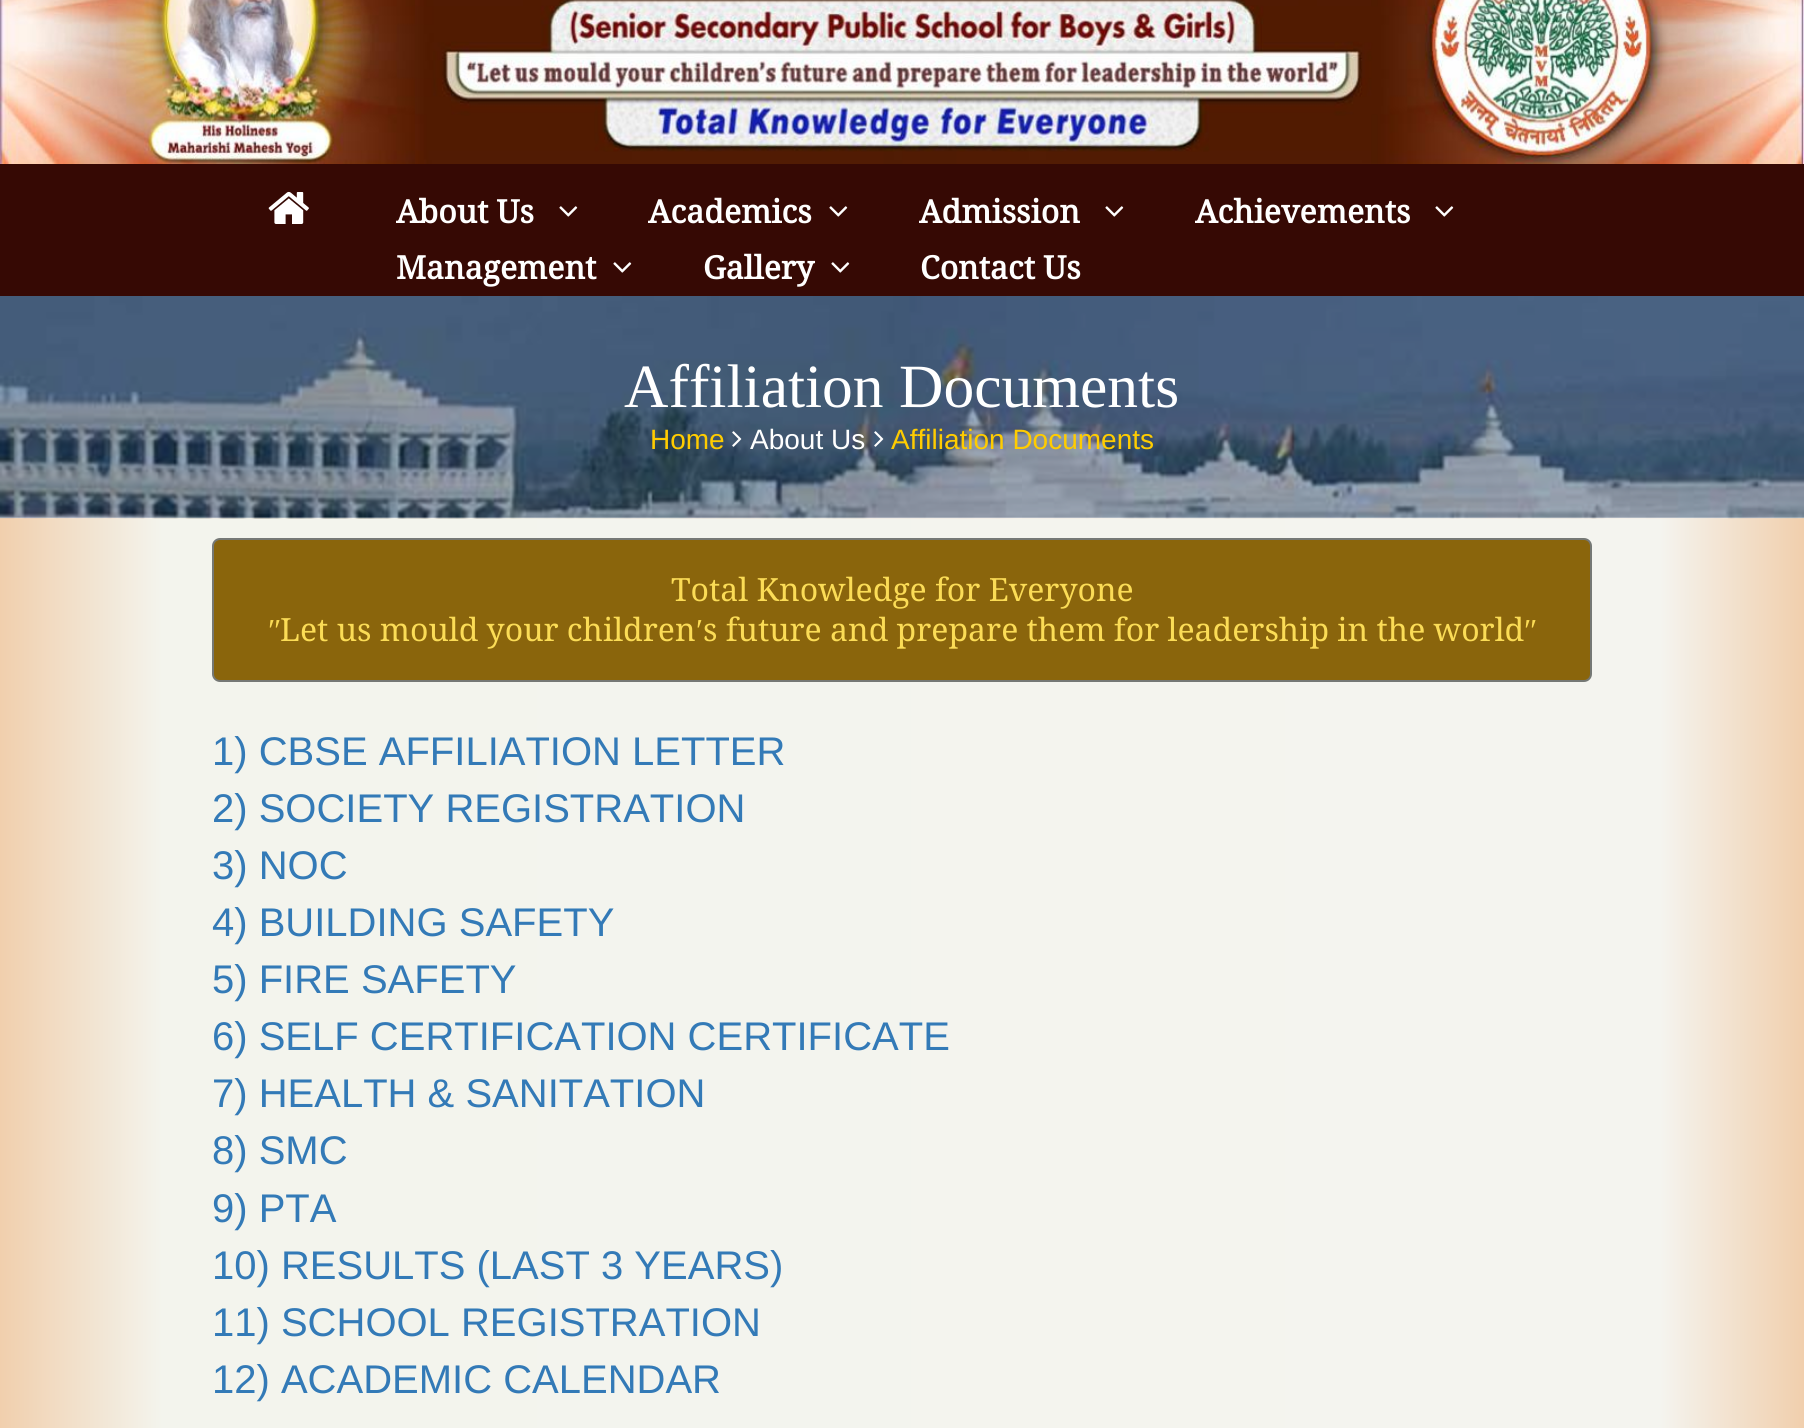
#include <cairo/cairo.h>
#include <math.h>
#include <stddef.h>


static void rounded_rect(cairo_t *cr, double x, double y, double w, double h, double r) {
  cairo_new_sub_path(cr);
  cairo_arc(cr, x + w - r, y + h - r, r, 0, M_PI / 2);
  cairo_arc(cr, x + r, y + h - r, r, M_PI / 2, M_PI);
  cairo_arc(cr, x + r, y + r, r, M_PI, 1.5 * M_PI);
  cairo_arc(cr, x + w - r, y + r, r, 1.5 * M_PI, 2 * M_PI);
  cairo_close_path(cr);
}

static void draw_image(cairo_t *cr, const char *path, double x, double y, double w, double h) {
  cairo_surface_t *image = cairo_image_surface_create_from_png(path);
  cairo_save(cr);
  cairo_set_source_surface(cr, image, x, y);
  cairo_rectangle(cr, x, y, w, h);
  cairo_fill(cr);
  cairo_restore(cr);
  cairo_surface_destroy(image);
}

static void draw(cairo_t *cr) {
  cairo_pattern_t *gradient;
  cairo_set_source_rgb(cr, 1, 1, 1);
  cairo_paint(cr);
  draw_image(cr, "images/1.png", 0, 0, 1804, 164);
  cairo_set_source_rgb(cr, 54 / 255.0, 9 / 255.0, 4 / 255.0);
  cairo_rectangle(cr, 0, 164, 1804, 132);
  cairo_fill(cr);
  draw_image(cr, "images/2.png", 268, 191, 41, 33);
  draw_image(cr, "images/3.png", 559, 206, 19, 11);
  draw_image(cr, "images/3.png", 829, 206, 19, 11);
  draw_image(cr, "images/3.png", 1105, 206, 19, 11);
  draw_image(cr, "images/3.png", 1435, 206, 19, 11);
  draw_image(cr, "images/3.png", 613, 262, 19, 11);
  draw_image(cr, "images/3.png", 831, 262, 19, 11);
  gradient = cairo_pattern_create_linear(0, 1034, 1804, 1034);
  cairo_pattern_add_color_stop_rgba(gradient, 0, 241 / 255.0, 207 / 255.0, 173 / 255.0, 1);
  cairo_pattern_add_color_stop_rgba(gradient, 0.09, 243 / 255.0, 244 / 255.0, 237 / 255.0, 1);
  cairo_pattern_add_color_stop_rgba(gradient, 0.92, 244 / 255.0, 244 / 255.0, 239 / 255.0, 1);
  cairo_pattern_add_color_stop_rgba(gradient, 1, 241 / 255.0, 207 / 255.0, 173 / 255.0, 1);
  cairo_set_source(cr, gradient);
  cairo_pattern_destroy(gradient);
  cairo_rectangle(cr, 0, 518, 1804, 910);
  cairo_fill(cr);
  draw_image(cr, "images/4.png", 0, 296, 1804, 223);
  draw_image(cr, "images/5.png", 732, 431, 10, 16);
  draw_image(cr, "images/6.png", 874, 431, 10, 16);
  cairo_set_source_rgb(cr, 138 / 255.0, 101 / 255.0, 12 / 255.0);
  rounded_rect(cr, 213, 539, 1378, 142, 7);
  cairo_fill_preserve(cr);
  cairo_set_source_rgb(cr, 117 / 255.0, 120 / 255.0, 117 / 255.0);
  cairo_stroke(cr);
  cairo_select_font_face(cr, "Droid Serif", CAIRO_FONT_SLANT_NORMAL, CAIRO_FONT_WEIGHT_BOLD);
  cairo_set_font_size(cr, 32);
  cairo_set_source_rgb(cr, 1, 1, 1);
  cairo_move_to(cr, 396, 223);
  cairo_show_text(cr, "About Us");
  cairo_move_to(cr, 648, 223);
  cairo_show_text(cr, "Academics");
  cairo_move_to(cr, 919, 223);
  cairo_show_text(cr, "Admission");
  cairo_move_to(cr, 1195, 223);
  cairo_show_text(cr, "Achievements");
  cairo_move_to(cr, 396, 279);
  cairo_show_text(cr, "Management");
  cairo_move_to(cr, 703, 279);
  cairo_show_text(cr, "Gallery");
  cairo_move_to(cr, 920, 279);
  cairo_show_text(cr, "Contact Us");
  cairo_select_font_face(cr, "Liberation Serif", CAIRO_FONT_SLANT_NORMAL, CAIRO_FONT_WEIGHT_NORMAL);
  cairo_set_font_size(cr, 61.5);
  cairo_move_to(cr, 624, 407);
  cairo_show_text(cr, "Affiliation Documents");
  cairo_select_font_face(cr, "Liberation Sans", CAIRO_FONT_SLANT_NORMAL, CAIRO_FONT_WEIGHT_NORMAL);
  cairo_set_font_size(cr, 28);
  cairo_set_source_rgb(cr, 1, 204 / 255.0, 0);
  cairo_move_to(cr, 650, 449);
  cairo_show_text(cr, "Home");
  cairo_set_source_rgb(cr, 1, 1, 1);
  cairo_move_to(cr, 750, 449);
  cairo_show_text(cr, "About Us");
  cairo_set_source_rgb(cr, 1, 204 / 255.0, 0);
  cairo_move_to(cr, 891, 449);
  cairo_show_text(cr, "Affiliation Documents");
  cairo_select_font_face(cr, "Droid Serif", CAIRO_FONT_SLANT_NORMAL, CAIRO_FONT_WEIGHT_NORMAL);
  cairo_set_font_size(cr, 32);
  cairo_set_source_rgb(cr, 251 / 255.0, 220 / 255.0, 86 / 255.0);
  cairo_move_to(cr, 671, 601);
  cairo_show_text(cr, "Total Knowledge for Everyone");
  cairo_select_font_face(cr, "Liberation Serif", CAIRO_FONT_SLANT_NORMAL, CAIRO_FONT_WEIGHT_NORMAL);
  cairo_move_to(cr, 268, 641);
  cairo_show_text(cr, "ʺ");
  cairo_select_font_face(cr, "Droid Serif", CAIRO_FONT_SLANT_NORMAL, CAIRO_FONT_WEIGHT_NORMAL);
  cairo_move_to(cr, 280, 641);
  cairo_show_text(cr, "Let us mould your children");
  cairo_select_font_face(cr, "Liberation Serif", CAIRO_FONT_SLANT_NORMAL, CAIRO_FONT_WEIGHT_NORMAL);
  cairo_move_to(cr, 696, 641);
  cairo_show_text(cr, "′");
  cairo_select_font_face(cr, "Droid Serif", CAIRO_FONT_SLANT_NORMAL, CAIRO_FONT_WEIGHT_NORMAL);
  cairo_move_to(cr, 703, 641);
  cairo_show_text(cr, "s future and prepare them for leadership in the world");
  cairo_select_font_face(cr, "Liberation Serif", CAIRO_FONT_SLANT_NORMAL, CAIRO_FONT_WEIGHT_NORMAL);
  cairo_move_to(cr, 1524, 641);
  cairo_show_text(cr, "ʺ");
  cairo_select_font_face(cr, "Liberation Sans", CAIRO_FONT_SLANT_NORMAL, CAIRO_FONT_WEIGHT_NORMAL);
  cairo_set_font_size(cr, 40);
  cairo_set_source_rgb(cr, 51 / 255.0, 122 / 255.0, 183 / 255.0);
  cairo_move_to(cr, 212, 765);
  cairo_show_text(cr, "1) CBSE AFFILIATION LETTER");
  cairo_move_to(cr, 212, 822);
  cairo_show_text(cr, "2) SOCIETY REGISTRATION");
  cairo_move_to(cr, 212, 879);
  cairo_show_text(cr, "3) NOC");
  cairo_move_to(cr, 212, 936);
  cairo_show_text(cr, "4) BUILDING SAFETY");
  cairo_move_to(cr, 212, 993);
  cairo_show_text(cr, "5) FIRE SAFETY");
  cairo_move_to(cr, 212, 1050);
  cairo_show_text(cr, "6) SELF CERTIFICATION CERTIFICATE");
  cairo_move_to(cr, 212, 1107);
  cairo_show_text(cr, "7) HEALTH & SANITATION");
  cairo_move_to(cr, 212, 1164);
  cairo_show_text(cr, "8) SMC");
  cairo_move_to(cr, 212, 1222);
  cairo_show_text(cr, "9) PTA");
  cairo_move_to(cr, 212, 1279);
  cairo_show_text(cr, "10) RESULTS (LAST 3 YEARS)");
  cairo_move_to(cr, 212, 1336);
  cairo_show_text(cr, "11) SCHOOL REGISTRATION");
  cairo_move_to(cr, 212, 1393);
  cairo_show_text(cr, "12) ACADEMIC CALENDAR");
}

int main(void) {
  cairo_surface_t *surface = cairo_image_surface_create(CAIRO_FORMAT_RGB24, 1804, 1428);
  cairo_t *cr = cairo_create(surface);
  cairo_font_options_t *options = cairo_font_options_create();
  cairo_font_options_set_hint_metrics(options, CAIRO_HINT_METRICS_OFF);
  cairo_font_options_set_hint_style(options, CAIRO_HINT_STYLE_NONE);
  cairo_set_font_options(cr, options);
  cairo_set_miter_limit(cr, 4);
  draw(cr);
  cairo_surface_write_to_png(surface, "out.png");
  cairo_font_options_destroy(options);
  cairo_destroy(cr);
  cairo_surface_destroy(surface);
  return 0;
}
